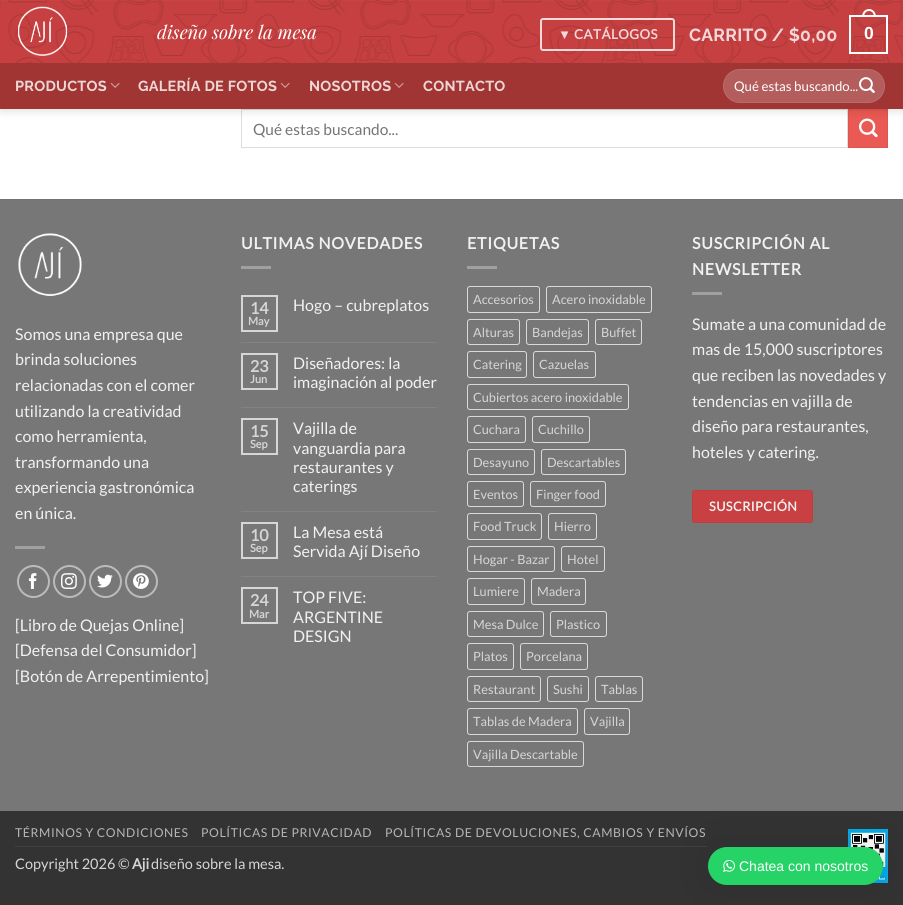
#include <cairo/cairo.h>
#include <math.h>
#include <stddef.h>


static void draw_spaced(cairo_t *cr, double x, double y, const char *s, double letter, double word) {
  cairo_move_to(cr, x, y);
  while (*s) {
    char ch[5] = {0};
    int n = 0;
    do ch[n++] = *s++; while ((*s & 0xC0) == 0x80);
    cairo_show_text(cr, ch);
    cairo_rel_move_to(cr, letter + word * (*ch == ' '), 0);
  }
}

static void rounded_rect(cairo_t *cr, double x, double y, double w, double h, double r) {
  cairo_new_sub_path(cr);
  cairo_arc(cr, x + w - r, y + h - r, r, 0, M_PI / 2);
  cairo_arc(cr, x + r, y + h - r, r, M_PI / 2, M_PI);
  cairo_arc(cr, x + r, y + r, r, M_PI, 1.5 * M_PI);
  cairo_arc(cr, x + w - r, y + r, r, 1.5 * M_PI, 2 * M_PI);
  cairo_close_path(cr);
}

static void draw_shadow(cairo_t *cr, double x, double y, double w, double h, double r, double blur, double alpha) {
  cairo_push_group_with_content(cr, CAIRO_CONTENT_ALPHA);
  cairo_set_operator(cr, CAIRO_OPERATOR_SOURCE);
  for (int i = 15; i >= -15 && fmin(w, h) + blur * i / 3 > 0; i -= 2) {
    double e = blur * i / 6;
    cairo_set_source_rgba(cr, 0, 0, 0, alpha * erfc((i - 1) / 8.5) / 2);
    rounded_rect(cr, x - e, y - e, w + 2 * e, h + 2 * e, fmax(0, fmin(r + e + blur * .6, fmin(w, h) / 2 + e)));
    cairo_fill(cr);
  }
  cairo_pattern_t *soft = cairo_pop_group(cr);
  cairo_mask(cr, soft);
  cairo_pattern_destroy(soft);
}

static void draw_image(cairo_t *cr, const char *path, double x, double y, double w, double h) {
  cairo_surface_t *image = cairo_image_surface_create_from_png(path);
  cairo_save(cr);
  cairo_set_source_surface(cr, image, x, y);
  cairo_rectangle(cr, x, y, w, h);
  cairo_fill(cr);
  cairo_restore(cr);
  cairo_surface_destroy(image);
}

static void draw(cairo_t *cr) {
  cairo_set_source_rgb(cr, 1, 1, 1);
  cairo_paint(cr);
  cairo_rectangle(cr, 241.5, 109.5, 606, 38);
  cairo_set_source_rgb(cr, 221 / 255.0, 221 / 255.0, 221 / 255.0);
  cairo_set_line_width(cr, 1);
  cairo_stroke(cr);
  cairo_set_source_rgb(cr, 234 / 255.0, 89 / 255.0, 83 / 255.0);
  cairo_rectangle(cr, 848.5, 109.5, 39, 38);
  cairo_fill_preserve(cr);
  cairo_set_source_rgb(cr, 222 / 255.0, 85 / 255.0, 79 / 255.0);
  cairo_stroke(cr);
  draw_image(cr, "images/5.png", 859, 118, 19, 20);
  cairo_set_source_rgb(cr, 0, 0, 0);
  draw_shadow(cr, 1, 1, 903, 109, 0, 5, 0.15);
  draw_image(cr, "images/1.png", 0, 0, 903, 63);
  draw_image(cr, "images/2.png", 18, 6, 50, 50);
  rounded_rect(cr, 541, 19, 133, 31, 2);
  cairo_set_source_rgba(cr, 1, 1, 1, 0.8);
  cairo_set_line_width(cr, 2);
  cairo_stroke(cr);
  cairo_rectangle(cr, 850, 16, 37, 37);
  cairo_set_source_rgb(cr, 1, 1, 1);
  cairo_stroke(cr);
  cairo_set_fill_rule(cr, CAIRO_FILL_RULE_EVEN_ODD);
  cairo_new_path(cr);
  cairo_move_to(cr, 869, 9);
  cairo_curve_to(cr, 873.5, 9, 876, 13, 876, 17);
  cairo_line_to(cr, 862, 17);
  cairo_curve_to(cr, 862, 13, 864.5, 9, 869, 9);
  cairo_close_path(cr);
  cairo_move_to(cr, 869, 11);
  cairo_curve_to(cr, 872.5, 11, 874, 14, 874, 17);
  cairo_line_to(cr, 864, 17);
  cairo_curve_to(cr, 864, 14, 865.5, 11, 869, 11);
  cairo_close_path(cr);
  cairo_fill(cr);
  cairo_set_source_rgb(cr, 160 / 255.0, 53 / 255.0, 51 / 255.0);
  cairo_rectangle(cr, 0, 63, 903, 46);
  cairo_fill(cr);
  draw_image(cr, "images/3.png", 110, 82, 10, 6);
  draw_image(cr, "images/3.png", 280, 82, 10, 6);
  draw_image(cr, "images/3.png", 394, 82, 10, 6);
  cairo_set_source_rgb(cr, 179 / 255.0, 93 / 255.0, 92 / 255.0);
  rounded_rect(cr, 723, 69, 162, 34, 17);
  cairo_fill(cr);
  rounded_rect(cr, 723.5, 69.5, 161, 33, 16.5);
  cairo_set_source_rgba(cr, 1, 1, 1, 0.09);
  cairo_set_line_width(cr, 1);
  cairo_stroke(cr);
  draw_image(cr, "images/4.png", 859, 77, 16, 16);
  cairo_set_source_rgb(cr, 119 / 255.0, 119 / 255.0, 119 / 255.0);
  cairo_rectangle(cr, 0, 200, 903, 611);
  cairo_fill(cr);
  cairo_set_source_rgb(cr, 113 / 255.0, 113 / 255.0, 113 / 255.0);
  cairo_rectangle(cr, 0, 199, 903, 1);
  cairo_fill(cr);
  draw_image(cr, "images/6.png", 18, 233, 64, 63);
  cairo_set_source_rgb(cr, 160 / 255.0, 160 / 255.0, 160 / 255.0);
  cairo_rectangle(cr, 15, 546, 30, 3);
  cairo_fill(cr);
  cairo_arc(cr, 33.5, 581.5, 15.5, 0, 2 * M_PI);
  cairo_set_source_rgb(cr, 187 / 255.0, 187 / 255.0, 187 / 255.0);
  cairo_set_line_width(cr, 2);
  cairo_stroke(cr);
  draw_image(cr, "images/7.png", 28, 573, 9, 16);
  cairo_arc(cr, 69.5, 581.5, 15.5, 0, 2 * M_PI);
  cairo_stroke(cr);
  draw_image(cr, "images/8.png", 61, 573, 16, 16);
  cairo_arc(cr, 105.5, 581.5, 15.5, 0, 2 * M_PI);
  cairo_stroke(cr);
  draw_image(cr, "images/9.png", 97, 574, 16, 14);
  cairo_arc(cr, 141.5, 581.5, 15.5, 0, 2 * M_PI);
  cairo_stroke(cr);
  draw_image(cr, "images/10.png", 133, 573, 16, 16);
  cairo_set_source_rgb(cr, 160 / 255.0, 160 / 255.0, 160 / 255.0);
  cairo_rectangle(cr, 241, 266, 30, 3);
  cairo_fill(cr);
  cairo_rectangle(cr, 242, 296, 35, 35);
  cairo_set_source_rgb(cr, 214 / 255.0, 214 / 255.0, 214 / 255.0);
  cairo_stroke(cr);
  cairo_set_source_rgb(cr, 130 / 255.0, 130 / 255.0, 130 / 255.0);
  cairo_rectangle(cr, 241, 342, 196, 1);
  cairo_fill(cr);
  cairo_rectangle(cr, 242, 354, 35, 35);
  cairo_set_source_rgb(cr, 214 / 255.0, 214 / 255.0, 214 / 255.0);
  cairo_stroke(cr);
  cairo_set_source_rgb(cr, 130 / 255.0, 130 / 255.0, 130 / 255.0);
  cairo_rectangle(cr, 241, 407, 196, 1);
  cairo_fill(cr);
  cairo_rectangle(cr, 242, 419, 35, 35);
  cairo_set_source_rgb(cr, 214 / 255.0, 214 / 255.0, 214 / 255.0);
  cairo_stroke(cr);
  cairo_set_source_rgb(cr, 130 / 255.0, 130 / 255.0, 130 / 255.0);
  cairo_rectangle(cr, 241, 511, 196, 1);
  cairo_fill(cr);
  cairo_rectangle(cr, 242, 523, 35, 35);
  cairo_set_source_rgb(cr, 214 / 255.0, 214 / 255.0, 214 / 255.0);
  cairo_stroke(cr);
  cairo_set_source_rgb(cr, 130 / 255.0, 130 / 255.0, 130 / 255.0);
  cairo_rectangle(cr, 241, 576, 196, 1);
  cairo_fill(cr);
  cairo_rectangle(cr, 242, 588, 35, 35);
  cairo_set_source_rgb(cr, 214 / 255.0, 214 / 255.0, 214 / 255.0);
  cairo_stroke(cr);
  cairo_set_source_rgb(cr, 160 / 255.0, 160 / 255.0, 160 / 255.0);
  cairo_rectangle(cr, 467, 266, 30, 3);
  cairo_fill(cr);
  rounded_rect(cr, 467.5, 286.5, 72, 26, 2.5);
  cairo_set_source_rgb(cr, 217 / 255.0, 217 / 255.0, 217 / 255.0);
  cairo_set_line_width(cr, 1);
  cairo_stroke(cr);
  rounded_rect(cr, 546.5, 286.5, 105, 26, 2.5);
  cairo_stroke(cr);
  rounded_rect(cr, 467.5, 319.5, 52, 25, 2.5);
  cairo_stroke(cr);
  rounded_rect(cr, 526.5, 319.5, 62, 25, 2.5);
  cairo_stroke(cr);
  rounded_rect(cr, 595.5, 319.5, 46, 25, 2.5);
  cairo_stroke(cr);
  rounded_rect(cr, 467.5, 351.5, 59, 26, 2.5);
  cairo_stroke(cr);
  rounded_rect(cr, 533.5, 351.5, 62, 26, 2.5);
  cairo_stroke(cr);
  rounded_rect(cr, 467.5, 384.5, 161, 25, 2.5);
  cairo_stroke(cr);
  rounded_rect(cr, 467.5, 416.5, 58, 26, 2.5);
  cairo_stroke(cr);
  rounded_rect(cr, 532.5, 416.5, 57, 26, 2.5);
  cairo_stroke(cr);
  rounded_rect(cr, 467.5, 449.5, 67, 25, 2.5);
  cairo_stroke(cr);
  rounded_rect(cr, 541.5, 449.5, 84, 25, 2.5);
  cairo_stroke(cr);
  rounded_rect(cr, 467.5, 481.5, 56, 25, 2.5);
  cairo_stroke(cr);
  rounded_rect(cr, 530.5, 481.5, 75, 25, 2.5);
  cairo_stroke(cr);
  rounded_rect(cr, 467.5, 513.5, 74, 26, 2.5);
  cairo_stroke(cr);
  rounded_rect(cr, 548.5, 513.5, 48, 26, 2.5);
  cairo_stroke(cr);
  rounded_rect(cr, 467.5, 546.5, 87, 25, 2.5);
  cairo_stroke(cr);
  rounded_rect(cr, 561.5, 546.5, 43, 25, 2.5);
  cairo_stroke(cr);
  rounded_rect(cr, 467.5, 578.5, 57, 26, 2.5);
  cairo_stroke(cr);
  rounded_rect(cr, 531.5, 578.5, 54, 26, 2.5);
  cairo_stroke(cr);
  rounded_rect(cr, 467.5, 611.5, 76, 25, 2.5);
  cairo_stroke(cr);
  rounded_rect(cr, 550.5, 611.5, 56, 25, 2.5);
  cairo_stroke(cr);
  rounded_rect(cr, 467.5, 643.5, 46, 26, 2.5);
  cairo_stroke(cr);
  rounded_rect(cr, 520.5, 643.5, 67, 26, 2.5);
  cairo_stroke(cr);
  rounded_rect(cr, 467.5, 676.5, 73, 25, 2.5);
  cairo_stroke(cr);
  rounded_rect(cr, 547.5, 676.5, 41, 25, 2.5);
  cairo_stroke(cr);
  rounded_rect(cr, 595.5, 676.5, 47, 25, 2.5);
  cairo_stroke(cr);
  rounded_rect(cr, 467.5, 708.5, 110, 26, 2.5);
  cairo_stroke(cr);
  rounded_rect(cr, 584.5, 708.5, 45, 26, 2.5);
  cairo_stroke(cr);
  rounded_rect(cr, 467.5, 741.5, 116, 25, 2.5);
  cairo_stroke(cr);
  cairo_set_source_rgb(cr, 160 / 255.0, 160 / 255.0, 160 / 255.0);
  cairo_rectangle(cr, 692, 292, 30, 3);
  cairo_fill(cr);
  cairo_set_source_rgb(cr, 200 / 255.0, 64 / 255.0, 65 / 255.0);
  rounded_rect(cr, 692, 490, 121, 33, 3);
  cairo_fill(cr);
  cairo_rectangle(cr, 692.5, 490.5, 120, 32);
  cairo_set_source_rgba(cr, 0, 0, 0, 0.05);
  cairo_stroke(cr);
  cairo_set_source_rgb(cr, 51 / 255.0, 51 / 255.0, 51 / 255.0);
  cairo_rectangle(cr, 0, 811, 903, 94);
  cairo_fill(cr);
  cairo_set_source_rgb(cr, 64 / 255.0, 64 / 255.0, 64 / 255.0);
  cairo_rectangle(cr, 15, 846, 692, 1);
  cairo_fill(cr);
  draw_image(cr, "images/11.png", 848, 829, 40, 54);
  cairo_set_source_rgb(cr, 0, 0, 0);
  draw_shadow(cr, 708, 847, 175, 38, 19, 25, 0.1);
  cairo_set_source_rgb(cr, 37 / 255.0, 211 / 255.0, 102 / 255.0);
  rounded_rect(cr, 708, 847, 175, 38, 19);
  cairo_fill(cr);
  draw_image(cr, "images/12.png", 723, 860, 12, 12);
  cairo_select_font_face(cr, "Playfair Display", CAIRO_FONT_SLANT_ITALIC, CAIRO_FONT_WEIGHT_NORMAL);
  cairo_set_font_size(cr, 18.5);
  cairo_set_source_rgb(cr, 1, 1, 1);
  cairo_move_to(cr, 157, 39);
  cairo_show_text(cr, "diseño sobre la mesa");
  cairo_select_font_face(cr, "Liberation Sans", CAIRO_FONT_SLANT_NORMAL, CAIRO_FONT_WEIGHT_BOLD);
  cairo_set_font_size(cr, 13.25);
  cairo_set_source_rgb(cr, 243 / 255.0, 216 / 255.0, 217 / 255.0);
  draw_spaced(cr, 558, 39, "▼", 0.5, 0);
  cairo_select_font_face(cr, "Lato", CAIRO_FONT_SLANT_NORMAL, CAIRO_FONT_WEIGHT_BOLD);
  draw_spaced(cr, 574, 39, "CATÁLOGOS", 0.5, 0);
  cairo_select_font_face(cr, "Raleway", CAIRO_FONT_SLANT_NORMAL, CAIRO_FONT_WEIGHT_BOLD);
  cairo_set_font_size(cr, 17.5);
  draw_spaced(cr, 689, 41, "CARRITO / $0,00", 0.3, 0);
  cairo_select_font_face(cr, "Liberation Sans", CAIRO_FONT_SLANT_NORMAL, CAIRO_FONT_WEIGHT_BOLD);
  cairo_set_source_rgb(cr, 1, 1, 1);
  draw_spaced(cr, 864, 39, "0", 0.3, 0);
  cairo_select_font_face(cr, "Raleway", CAIRO_FONT_SLANT_NORMAL, CAIRO_FONT_WEIGHT_BOLD);
  cairo_set_font_size(cr, 14.5);
  cairo_set_source_rgb(cr, 236 / 255.0, 215 / 255.0, 214 / 255.0);
  draw_spaced(cr, 15, 91, "PRODUCTOS", 0.25, 0);
  draw_spaced(cr, 138, 91, "GALERÍA DE FOTOS", 0.25, 0);
  draw_spaced(cr, 309, 91, "NOSOTROS", 0.25, 0);
  draw_spaced(cr, 423, 91, "CONTACTO", 0.25, 0);
  cairo_select_font_face(cr, "Lato", CAIRO_FONT_SLANT_NORMAL, CAIRO_FONT_WEIGHT_NORMAL);
  cairo_set_font_size(cr, 13.25);
  cairo_set_source_rgb(cr, 1, 1, 1);
  cairo_move_to(cr, 734, 91);
  cairo_show_text(cr, "Qué estas buscando...");
  cairo_set_font_size(cr, 15.5);
  cairo_set_source_rgb(cr, 117 / 255.0, 117 / 255.0, 117 / 255.0);
  cairo_move_to(cr, 253, 135);
  cairo_show_text(cr, "Qué estas buscando...");
  cairo_set_font_size(cr, 16);
  cairo_set_source_rgb(cr, 241 / 255.0, 241 / 255.0, 241 / 255.0);
  cairo_move_to(cr, 15, 340);
  cairo_show_text(cr, "Somos una empresa que");
  cairo_move_to(cr, 15, 365);
  cairo_show_text(cr, "brinda soluciones");
  cairo_move_to(cr, 15, 391);
  cairo_show_text(cr, "relacionadas con el comer");
  cairo_move_to(cr, 15, 417);
  cairo_show_text(cr, "utilizando la creatividad");
  cairo_move_to(cr, 15, 442);
  cairo_show_text(cr, "como herramienta,");
  cairo_move_to(cr, 15, 468);
  cairo_show_text(cr, "transformando una");
  cairo_move_to(cr, 15, 493);
  cairo_show_text(cr, "experiencia gastronómica");
  cairo_move_to(cr, 15, 519);
  cairo_show_text(cr, "en única.");
  cairo_move_to(cr, 15, 631);
  cairo_show_text(cr, "[Libro de Quejas Online]");
  cairo_move_to(cr, 15, 656);
  cairo_show_text(cr, "[Defensa del Consumidor]");
  cairo_move_to(cr, 15, 682);
  cairo_show_text(cr, "[Botón de Arrepentimiento]");
  cairo_select_font_face(cr, "Lato", CAIRO_FONT_SLANT_NORMAL, CAIRO_FONT_WEIGHT_BOLD);
  draw_spaced(cr, 241, 249, "ULTIMAS NOVEDADES", 0.75, 0);
  cairo_set_source_rgb(cr, 214 / 255.0, 214 / 255.0, 214 / 255.0);
  cairo_move_to(cr, 250, 314);
  cairo_show_text(cr, "14");
  cairo_set_font_size(cr, 11);
  cairo_move_to(cr, 248, 325);
  cairo_show_text(cr, "May");
  cairo_select_font_face(cr, "Lato", CAIRO_FONT_SLANT_NORMAL, CAIRO_FONT_WEIGHT_NORMAL);
  cairo_set_font_size(cr, 16);
  cairo_set_source_rgb(cr, 241 / 255.0, 241 / 255.0, 241 / 255.0);
  cairo_move_to(cr, 293, 311);
  cairo_show_text(cr, "Hogo – cubreplatos");
  cairo_select_font_face(cr, "Lato", CAIRO_FONT_SLANT_NORMAL, CAIRO_FONT_WEIGHT_BOLD);
  cairo_set_source_rgb(cr, 214 / 255.0, 214 / 255.0, 214 / 255.0);
  cairo_move_to(cr, 250, 372);
  cairo_show_text(cr, "23");
  cairo_set_font_size(cr, 11);
  cairo_move_to(cr, 250, 383);
  cairo_show_text(cr, "Jun");
  cairo_select_font_face(cr, "Lato", CAIRO_FONT_SLANT_NORMAL, CAIRO_FONT_WEIGHT_NORMAL);
  cairo_set_font_size(cr, 16);
  cairo_set_source_rgb(cr, 241 / 255.0, 241 / 255.0, 241 / 255.0);
  cairo_move_to(cr, 293, 369);
  cairo_show_text(cr, "Diseñadores: la");
  cairo_move_to(cr, 293, 388);
  cairo_show_text(cr, "imaginación al poder");
  cairo_select_font_face(cr, "Lato", CAIRO_FONT_SLANT_NORMAL, CAIRO_FONT_WEIGHT_BOLD);
  cairo_set_source_rgb(cr, 214 / 255.0, 214 / 255.0, 214 / 255.0);
  cairo_move_to(cr, 250, 437);
  cairo_show_text(cr, "15");
  cairo_set_font_size(cr, 11);
  cairo_move_to(cr, 250, 448);
  cairo_show_text(cr, "Sep");
  cairo_select_font_face(cr, "Lato", CAIRO_FONT_SLANT_NORMAL, CAIRO_FONT_WEIGHT_NORMAL);
  cairo_set_font_size(cr, 16);
  cairo_set_source_rgb(cr, 241 / 255.0, 241 / 255.0, 241 / 255.0);
  cairo_move_to(cr, 293, 434);
  cairo_show_text(cr, "Vajilla de");
  cairo_move_to(cr, 293, 454);
  cairo_show_text(cr, "vanguardia para");
  cairo_move_to(cr, 293, 473);
  cairo_show_text(cr, "restaurantes y");
  cairo_move_to(cr, 293, 492);
  cairo_show_text(cr, "caterings");
  cairo_select_font_face(cr, "Lato", CAIRO_FONT_SLANT_NORMAL, CAIRO_FONT_WEIGHT_BOLD);
  cairo_set_source_rgb(cr, 214 / 255.0, 214 / 255.0, 214 / 255.0);
  cairo_move_to(cr, 250, 541);
  cairo_show_text(cr, "10");
  cairo_set_font_size(cr, 11);
  cairo_move_to(cr, 250, 552);
  cairo_show_text(cr, "Sep");
  cairo_select_font_face(cr, "Lato", CAIRO_FONT_SLANT_NORMAL, CAIRO_FONT_WEIGHT_NORMAL);
  cairo_set_font_size(cr, 16);
  cairo_set_source_rgb(cr, 241 / 255.0, 241 / 255.0, 241 / 255.0);
  cairo_move_to(cr, 293, 538);
  cairo_show_text(cr, "La Mesa está");
  cairo_move_to(cr, 293, 557);
  cairo_show_text(cr, "Servida Ají Diseño");
  cairo_select_font_face(cr, "Lato", CAIRO_FONT_SLANT_NORMAL, CAIRO_FONT_WEIGHT_BOLD);
  cairo_set_source_rgb(cr, 214 / 255.0, 214 / 255.0, 214 / 255.0);
  cairo_move_to(cr, 250, 606);
  cairo_show_text(cr, "24");
  cairo_set_font_size(cr, 11);
  cairo_move_to(cr, 249, 618);
  cairo_show_text(cr, "Mar");
  cairo_select_font_face(cr, "Lato", CAIRO_FONT_SLANT_NORMAL, CAIRO_FONT_WEIGHT_NORMAL);
  cairo_set_font_size(cr, 16);
  cairo_set_source_rgb(cr, 241 / 255.0, 241 / 255.0, 241 / 255.0);
  cairo_move_to(cr, 293, 603);
  cairo_show_text(cr, "TOP FIVE:");
  cairo_move_to(cr, 293, 623);
  cairo_show_text(cr, "ARGENTINE");
  cairo_move_to(cr, 293, 642);
  cairo_show_text(cr, "DESIGN");
  cairo_select_font_face(cr, "Lato", CAIRO_FONT_SLANT_NORMAL, CAIRO_FONT_WEIGHT_BOLD);
  draw_spaced(cr, 467, 249, "ETIQUETAS", 0.75, 0);
  cairo_select_font_face(cr, "Lato", CAIRO_FONT_SLANT_NORMAL, CAIRO_FONT_WEIGHT_NORMAL);
  cairo_set_font_size(cr, 12.75);
  cairo_set_source_rgb(cr, 214 / 255.0, 214 / 255.0, 214 / 255.0);
  cairo_move_to(cr, 473, 304);
  cairo_show_text(cr, "Accesorios");
  cairo_move_to(cr, 552, 304);
  cairo_show_text(cr, "Acero inoxidable");
  cairo_move_to(cr, 473, 337);
  cairo_show_text(cr, "Alturas");
  cairo_move_to(cr, 532, 337);
  cairo_show_text(cr, "Bandejas");
  cairo_move_to(cr, 601, 337);
  cairo_show_text(cr, "Buffet");
  cairo_move_to(cr, 473, 369);
  cairo_show_text(cr, "Catering");
  cairo_move_to(cr, 539, 369);
  cairo_show_text(cr, "Cazuelas");
  cairo_move_to(cr, 473, 402);
  cairo_show_text(cr, "Cubiertos acero inoxidable");
  cairo_move_to(cr, 473, 434);
  cairo_show_text(cr, "Cuchara");
  cairo_move_to(cr, 538, 434);
  cairo_show_text(cr, "Cuchillo");
  cairo_move_to(cr, 473, 467);
  cairo_show_text(cr, "Desayuno");
  cairo_move_to(cr, 547, 467);
  cairo_show_text(cr, "Descartables");
  cairo_move_to(cr, 473, 499);
  cairo_show_text(cr, "Eventos");
  cairo_move_to(cr, 536, 499);
  cairo_show_text(cr, "Finger food");
  cairo_move_to(cr, 473, 531);
  cairo_show_text(cr, "Food Truck");
  cairo_move_to(cr, 554, 531);
  cairo_show_text(cr, "Hierro");
  cairo_move_to(cr, 473, 564);
  cairo_show_text(cr, "Hogar - Bazar");
  cairo_move_to(cr, 567, 564);
  cairo_show_text(cr, "Hotel");
  cairo_move_to(cr, 473, 596);
  cairo_show_text(cr, "Lumiere");
  cairo_move_to(cr, 537, 596);
  cairo_show_text(cr, "Madera");
  cairo_move_to(cr, 473, 629);
  cairo_show_text(cr, "Mesa Dulce");
  cairo_move_to(cr, 556, 629);
  cairo_show_text(cr, "Plastico");
  cairo_move_to(cr, 473, 661);
  cairo_show_text(cr, "Platos");
  cairo_move_to(cr, 526, 661);
  cairo_show_text(cr, "Porcelana");
  cairo_move_to(cr, 473, 694);
  cairo_show_text(cr, "Restaurant");
  cairo_move_to(cr, 553, 694);
  cairo_show_text(cr, "Sushi");
  cairo_move_to(cr, 601, 694);
  cairo_show_text(cr, "Tablas");
  cairo_move_to(cr, 473, 726);
  cairo_show_text(cr, "Tablas de Madera");
  cairo_move_to(cr, 590, 726);
  cairo_show_text(cr, "Vajilla");
  cairo_move_to(cr, 473, 759);
  cairo_show_text(cr, "Vajilla Descartable");
  cairo_select_font_face(cr, "Lato", CAIRO_FONT_SLANT_NORMAL, CAIRO_FONT_WEIGHT_BOLD);
  cairo_set_font_size(cr, 16);
  cairo_set_source_rgb(cr, 241 / 255.0, 241 / 255.0, 241 / 255.0);
  draw_spaced(cr, 692, 249, "SUSCRIPCIÓN AL", 0.75, 0);
  draw_spaced(cr, 692, 275, "NEWSLETTER", 0.75, 0);
  cairo_select_font_face(cr, "Lato", CAIRO_FONT_SLANT_NORMAL, CAIRO_FONT_WEIGHT_NORMAL);
  cairo_move_to(cr, 692, 330);
  cairo_show_text(cr, "Sumate a una comunidad de");
  cairo_move_to(cr, 692, 355);
  cairo_show_text(cr, "mas de 15,000 suscriptores");
  cairo_move_to(cr, 692, 381);
  cairo_show_text(cr, "que reciben las novedades y");
  cairo_move_to(cr, 692, 407);
  cairo_show_text(cr, "tendencias en vajilla de");
  cairo_move_to(cr, 692, 432);
  cairo_show_text(cr, "diseño para restaurantes,");
  cairo_move_to(cr, 692, 458);
  cairo_show_text(cr, "hoteles y catering.");
  cairo_select_font_face(cr, "Lato", CAIRO_FONT_SLANT_NORMAL, CAIRO_FONT_WEIGHT_BOLD);
  cairo_set_font_size(cr, 12.75);
  draw_spaced(cr, 709, 511, "SUSCRIPCIÓN", 0.4, 0);
  cairo_select_font_face(cr, "Lato", CAIRO_FONT_SLANT_NORMAL, CAIRO_FONT_WEIGHT_NORMAL);
  cairo_set_font_size(cr, 12.25);
  cairo_set_source_rgb(cr, 181 / 255.0, 181 / 255.0, 181 / 255.0);
  draw_spaced(cr, 15, 837, "TÉRMINOS Y CONDICIONES", 0.6, 0);
  draw_spaced(cr, 201, 837, "POLÍTICAS DE PRIVACIDAD", 0.6, 0);
  draw_spaced(cr, 385, 837, "POLÍTICAS DE DEVOLUCIONES, CAMBIOS Y ENVÍOS", 0.6, 0);
  cairo_set_font_size(cr, 14.5);
  cairo_set_source_rgb(cr, 214 / 255.0, 214 / 255.0, 214 / 255.0);
  cairo_move_to(cr, 15, 869);
  cairo_show_text(cr, "Copyright 2026 ©");
  cairo_select_font_face(cr, "Lato", CAIRO_FONT_SLANT_NORMAL, CAIRO_FONT_WEIGHT_BOLD);
  cairo_move_to(cr, 132, 869);
  cairo_show_text(cr, "Aji");
  cairo_select_font_face(cr, "Lato", CAIRO_FONT_SLANT_NORMAL, CAIRO_FONT_WEIGHT_NORMAL);
  cairo_move_to(cr, 151, 869);
  cairo_show_text(cr, "diseño sobre la mesa.");
  cairo_select_font_face(cr, "Liberation Sans", CAIRO_FONT_SLANT_NORMAL, CAIRO_FONT_WEIGHT_NORMAL);
  cairo_set_font_size(cr, 14);
  cairo_set_source_rgb(cr, 1, 1, 1);
  cairo_move_to(cr, 739, 871);
  cairo_show_text(cr, "Chatea con nosotros");
}

int main(void) {
  cairo_surface_t *surface = cairo_image_surface_create(CAIRO_FORMAT_RGB24, 903, 905);
  cairo_t *cr = cairo_create(surface);
  cairo_font_options_t *options = cairo_font_options_create();
  cairo_font_options_set_hint_metrics(options, CAIRO_HINT_METRICS_OFF);
  cairo_font_options_set_hint_style(options, CAIRO_HINT_STYLE_NONE);
  cairo_set_font_options(cr, options);
  cairo_set_miter_limit(cr, 4);
  draw(cr);
  cairo_surface_write_to_png(surface, "out.png");
  cairo_font_options_destroy(options);
  cairo_destroy(cr);
  cairo_surface_destroy(surface);
  return 0;
}
